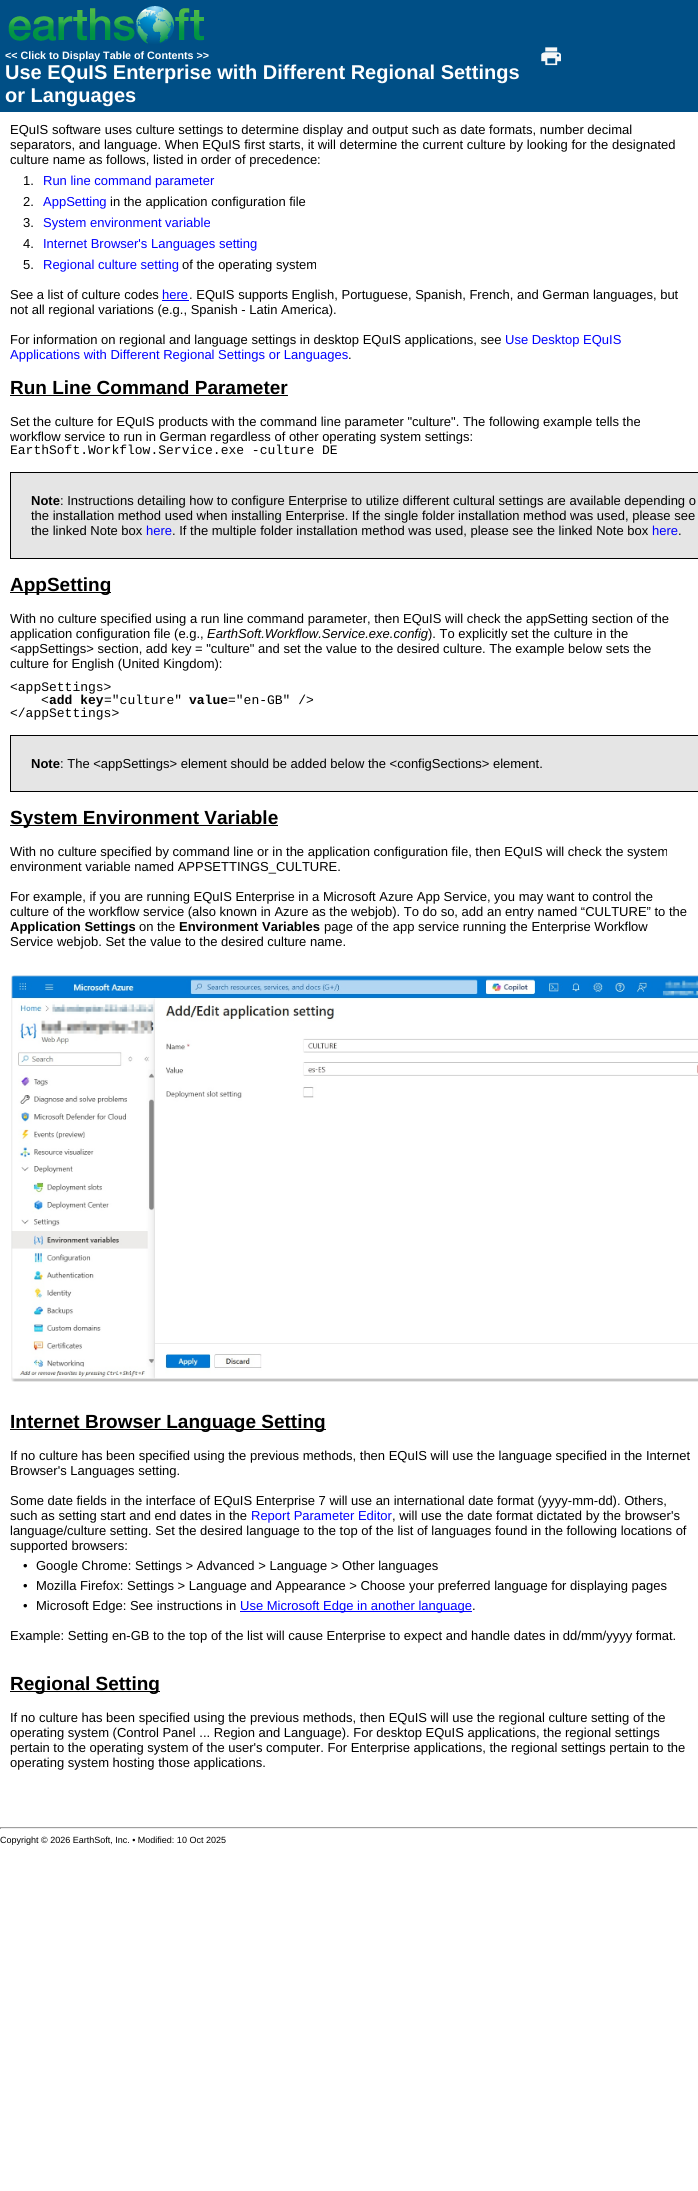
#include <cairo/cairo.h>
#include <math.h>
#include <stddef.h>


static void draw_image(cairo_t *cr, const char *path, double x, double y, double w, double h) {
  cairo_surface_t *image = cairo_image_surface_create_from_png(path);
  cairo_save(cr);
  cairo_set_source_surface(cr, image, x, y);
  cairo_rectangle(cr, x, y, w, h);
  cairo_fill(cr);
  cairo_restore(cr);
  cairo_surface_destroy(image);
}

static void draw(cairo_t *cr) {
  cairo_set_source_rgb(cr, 1, 1, 1);
  cairo_paint(cr);
  cairo_set_source_rgb(cr, 0, 79 / 255.0, 134 / 255.0);
  cairo_rectangle(cr, 0, 0, 698, 112);
  cairo_fill(cr);
  draw_image(cr, "images/1.png", 8, 6, 196, 38);
  draw_image(cr, "images/2.png", 541, 47, 20, 19);
  cairo_set_source_rgb(cr, 0, 0, 1);
  cairo_rectangle(cr, 162, 300, 27, 1);
  cairo_fill(cr);
  cairo_set_source_rgb(cr, 0, 0, 0);
  cairo_rectangle(cr, 10, 395, 278, 1);
  cairo_fill(cr);
  cairo_set_source_rgb(cr, 229 / 255.0, 229 / 255.0, 229 / 255.0);
  cairo_rectangle(cr, 11, 473, 687, 85);
  cairo_fill(cr);
  cairo_set_source_rgb(cr, 0, 0, 0);
  cairo_rectangle(cr, 10, 472, 688, 1);
  cairo_fill(cr);
  cairo_rectangle(cr, 10, 558, 688, 1);
  cairo_fill(cr);
  cairo_rectangle(cr, 10, 472, 1, 87);
  cairo_fill(cr);
  cairo_rectangle(cr, 10, 592, 101, 1);
  cairo_fill(cr);
  cairo_set_source_rgb(cr, 229 / 255.0, 229 / 255.0, 229 / 255.0);
  cairo_rectangle(cr, 11, 736, 687, 55);
  cairo_fill(cr);
  cairo_set_source_rgb(cr, 0, 0, 0);
  cairo_rectangle(cr, 10, 735, 688, 1);
  cairo_fill(cr);
  cairo_rectangle(cr, 10, 791, 688, 1);
  cairo_fill(cr);
  cairo_rectangle(cr, 10, 735, 1, 57);
  cairo_fill(cr);
  cairo_rectangle(cr, 10, 825, 268, 1);
  cairo_fill(cr);
  draw_image(cr, "images/3.png", 11, 975, 687, 407);
  cairo_rectangle(cr, 10, 1429, 316, 1);
  cairo_fill(cr);
  cairo_set_source_rgb(cr, 0, 0, 1);
  cairo_rectangle(cr, 240, 1611, 232, 1);
  cairo_fill(cr);
  cairo_set_source_rgb(cr, 0, 0, 0);
  cairo_rectangle(cr, 10, 1691, 150, 1);
  cairo_fill(cr);
  cairo_set_source_rgb(cr, 159 / 255.0, 159 / 255.0, 159 / 255.0);
  cairo_rectangle(cr, 0, 1827, 698, 1);
  cairo_fill(cr);
  cairo_set_source_rgb(cr, 238 / 255.0, 238 / 255.0, 238 / 255.0);
  cairo_rectangle(cr, 697, 1827, 1, 2);
  cairo_fill(cr);
  cairo_rectangle(cr, 0, 1828, 698, 1);
  cairo_fill(cr);
  cairo_set_source_rgb(cr, 159 / 255.0, 159 / 255.0, 159 / 255.0);
  cairo_rectangle(cr, 0, 1827, 1, 2);
  cairo_fill(cr);
  cairo_select_font_face(cr, "Liberation Sans", CAIRO_FONT_SLANT_NORMAL, CAIRO_FONT_WEIGHT_BOLD);
  cairo_set_font_size(cr, 10.7);
  cairo_set_source_rgb(cr, 1, 1, 1);
  cairo_move_to(cr, 5, 59);
  cairo_show_text(cr, "<< Click to Display Table of Contents >>");
  cairo_set_font_size(cr, 20);
  cairo_move_to(cr, 5, 79);
  cairo_show_text(cr, "Use EQuIS Enterprise with Different Regional Settings");
  cairo_move_to(cr, 5, 102);
  cairo_show_text(cr, "or Languages");
  cairo_select_font_face(cr, "Liberation Sans", CAIRO_FONT_SLANT_NORMAL, CAIRO_FONT_WEIGHT_NORMAL);
  cairo_set_font_size(cr, 13);
  cairo_set_source_rgb(cr, 0, 0, 0);
  cairo_move_to(cr, 10, 134);
  cairo_show_text(cr, "EQuIS software uses culture settings to determine display and output such as date formats, number decimal");
  cairo_move_to(cr, 10, 149);
  cairo_show_text(cr, "separators, and language. When EQuIS first starts, it will determine the current culture by looking for the designated");
  cairo_move_to(cr, 10, 164);
  cairo_show_text(cr, "culture name as follows, listed in order of precedence:");
  cairo_move_to(cr, 23, 185);
  cairo_show_text(cr, "1.");
  cairo_set_source_rgb(cr, 0, 0, 1);
  cairo_move_to(cr, 43, 185);
  cairo_show_text(cr, "Run line command parameter");
  cairo_set_source_rgb(cr, 0, 0, 0);
  cairo_move_to(cr, 23, 206);
  cairo_show_text(cr, "2.");
  cairo_set_source_rgb(cr, 0, 0, 1);
  cairo_move_to(cr, 43, 206);
  cairo_show_text(cr, "AppSetting");
  cairo_set_source_rgb(cr, 0, 0, 0);
  cairo_move_to(cr, 110, 206);
  cairo_show_text(cr, "in the application configuration file");
  cairo_move_to(cr, 23, 227);
  cairo_show_text(cr, "3.");
  cairo_set_source_rgb(cr, 0, 0, 1);
  cairo_move_to(cr, 43, 227);
  cairo_show_text(cr, "System environment variable");
  cairo_set_source_rgb(cr, 0, 0, 0);
  cairo_move_to(cr, 23, 248);
  cairo_show_text(cr, "4.");
  cairo_set_source_rgb(cr, 0, 0, 1);
  cairo_move_to(cr, 43, 248);
  cairo_show_text(cr, "Internet Browser's Languages setting");
  cairo_set_source_rgb(cr, 0, 0, 0);
  cairo_move_to(cr, 23, 269);
  cairo_show_text(cr, "5.");
  cairo_set_source_rgb(cr, 0, 0, 1);
  cairo_move_to(cr, 43, 269);
  cairo_show_text(cr, "Regional culture setting");
  cairo_set_source_rgb(cr, 0, 0, 0);
  cairo_move_to(cr, 182, 269);
  cairo_show_text(cr, "of the operating system");
  cairo_move_to(cr, 10, 299);
  cairo_show_text(cr, "See a list of culture codes");
  cairo_set_source_rgb(cr, 0, 0, 1);
  cairo_move_to(cr, 162, 299);
  cairo_show_text(cr, "here");
  cairo_set_source_rgb(cr, 0, 0, 0);
  cairo_move_to(cr, 189, 299);
  cairo_show_text(cr, ". EQuIS supports English, Portuguese, Spanish, French, and German languages, but");
  cairo_move_to(cr, 10, 314);
  cairo_show_text(cr, "not all regional variations (e.g., Spanish - Latin America).");
  cairo_move_to(cr, 10, 344);
  cairo_show_text(cr, "For information on regional and language settings in desktop EQuIS applications, see");
  cairo_set_source_rgb(cr, 0, 0, 1);
  cairo_move_to(cr, 505, 344);
  cairo_show_text(cr, "Use Desktop EQuIS");
  cairo_move_to(cr, 10, 359);
  cairo_show_text(cr, "Applications with Different Regional Settings or Languages");
  cairo_set_source_rgb(cr, 0, 0, 0);
  cairo_move_to(cr, 348, 359);
  cairo_show_text(cr, ".");
  cairo_select_font_face(cr, "Liberation Sans", CAIRO_FONT_SLANT_NORMAL, CAIRO_FONT_WEIGHT_BOLD);
  cairo_set_font_size(cr, 19);
  cairo_move_to(cr, 10, 394);
  cairo_show_text(cr, "Run Line Command Parameter");
  cairo_select_font_face(cr, "Liberation Sans", CAIRO_FONT_SLANT_NORMAL, CAIRO_FONT_WEIGHT_NORMAL);
  cairo_set_font_size(cr, 13);
  cairo_move_to(cr, 10, 426);
  cairo_show_text(cr, "Set the culture for EQuIS products with the command line parameter \"culture\". The following example tells the");
  cairo_move_to(cr, 10, 441);
  cairo_show_text(cr, "workflow service to run in German regardless of other operating system settings:");
  cairo_select_font_face(cr, "Liberation Mono", CAIRO_FONT_SLANT_NORMAL, CAIRO_FONT_WEIGHT_NORMAL);
  cairo_move_to(cr, 10, 454);
  cairo_show_text(cr, "EarthSoft.Workflow.Service.exe -culture DE");
  cairo_select_font_face(cr, "Liberation Sans", CAIRO_FONT_SLANT_NORMAL, CAIRO_FONT_WEIGHT_BOLD);
  cairo_move_to(cr, 31, 505);
  cairo_show_text(cr, "Note");
  cairo_select_font_face(cr, "Liberation Sans", CAIRO_FONT_SLANT_NORMAL, CAIRO_FONT_WEIGHT_NORMAL);
  cairo_move_to(cr, 60, 505);
  cairo_show_text(cr, ": Instructions detailing how to configure Enterprise to utilize different cultural settings are available depending o");
  cairo_move_to(cr, 31, 520);
  cairo_show_text(cr, "the installation method used when installing Enterprise. If the single folder installation method was used, please see");
  cairo_move_to(cr, 31, 535);
  cairo_show_text(cr, "the linked Note box");
  cairo_set_source_rgb(cr, 0, 0, 1);
  cairo_move_to(cr, 146, 535);
  cairo_show_text(cr, "here");
  cairo_set_source_rgb(cr, 0, 0, 0);
  cairo_move_to(cr, 172, 535);
  cairo_show_text(cr, ". If the multiple folder installation method was used, please see the linked Note box");
  cairo_set_source_rgb(cr, 0, 0, 1);
  cairo_move_to(cr, 652, 535);
  cairo_show_text(cr, "here");
  cairo_set_source_rgb(cr, 0, 0, 0);
  cairo_move_to(cr, 678, 535);
  cairo_show_text(cr, ".");
  cairo_select_font_face(cr, "Liberation Sans", CAIRO_FONT_SLANT_NORMAL, CAIRO_FONT_WEIGHT_BOLD);
  cairo_set_font_size(cr, 19);
  cairo_move_to(cr, 10, 591);
  cairo_show_text(cr, "AppSetting");
  cairo_select_font_face(cr, "Liberation Sans", CAIRO_FONT_SLANT_NORMAL, CAIRO_FONT_WEIGHT_NORMAL);
  cairo_set_font_size(cr, 13);
  cairo_move_to(cr, 10, 623);
  cairo_show_text(cr, "With no culture specified using a run line command parameter, then EQuIS will check the appSetting section of the");
  cairo_move_to(cr, 10, 638);
  cairo_show_text(cr, "application configuration file (e.g.,");
  cairo_select_font_face(cr, "Liberation Sans", CAIRO_FONT_SLANT_ITALIC, CAIRO_FONT_WEIGHT_NORMAL);
  cairo_move_to(cr, 207, 638);
  cairo_show_text(cr, "EarthSoft.Workflow.Service.exe.config");
  cairo_select_font_face(cr, "Liberation Sans", CAIRO_FONT_SLANT_NORMAL, CAIRO_FONT_WEIGHT_NORMAL);
  cairo_move_to(cr, 428, 638);
  cairo_show_text(cr, "). To explicitly set the culture in the");
  cairo_move_to(cr, 10, 653);
  cairo_show_text(cr, "<appSettings> section, add key = \"culture\" and set the value to the desired culture. The example below sets the");
  cairo_move_to(cr, 10, 668);
  cairo_show_text(cr, "culture for English (United Kingdom):");
  cairo_select_font_face(cr, "Liberation Mono", CAIRO_FONT_SLANT_NORMAL, CAIRO_FONT_WEIGHT_NORMAL);
  cairo_move_to(cr, 10, 691);
  cairo_show_text(cr, "<appSettings>");
  cairo_move_to(cr, 41, 704);
  cairo_show_text(cr, "<");
  cairo_select_font_face(cr, "Liberation Mono", CAIRO_FONT_SLANT_NORMAL, CAIRO_FONT_WEIGHT_BOLD);
  cairo_move_to(cr, 49, 704);
  cairo_show_text(cr, "add key");
  cairo_select_font_face(cr, "Liberation Mono", CAIRO_FONT_SLANT_NORMAL, CAIRO_FONT_WEIGHT_NORMAL);
  cairo_move_to(cr, 104, 704);
  cairo_show_text(cr, "=\"culture\"");
  cairo_select_font_face(cr, "Liberation Mono", CAIRO_FONT_SLANT_NORMAL, CAIRO_FONT_WEIGHT_BOLD);
  cairo_move_to(cr, 189, 704);
  cairo_show_text(cr, "value");
  cairo_select_font_face(cr, "Liberation Mono", CAIRO_FONT_SLANT_NORMAL, CAIRO_FONT_WEIGHT_NORMAL);
  cairo_move_to(cr, 228, 704);
  cairo_show_text(cr, "=\"en-GB\" />");
  cairo_move_to(cr, 10, 717);
  cairo_show_text(cr, "</appSettings>");
  cairo_select_font_face(cr, "Liberation Sans", CAIRO_FONT_SLANT_NORMAL, CAIRO_FONT_WEIGHT_BOLD);
  cairo_move_to(cr, 31, 768);
  cairo_show_text(cr, "Note");
  cairo_select_font_face(cr, "Liberation Sans", CAIRO_FONT_SLANT_NORMAL, CAIRO_FONT_WEIGHT_NORMAL);
  cairo_move_to(cr, 60, 768);
  cairo_show_text(cr, ": The <appSettings> element should be added below the <configSections> element.");
  cairo_select_font_face(cr, "Liberation Sans", CAIRO_FONT_SLANT_NORMAL, CAIRO_FONT_WEIGHT_BOLD);
  cairo_set_font_size(cr, 19);
  cairo_move_to(cr, 10, 824);
  cairo_show_text(cr, "System Environment Variable");
  cairo_select_font_face(cr, "Liberation Sans", CAIRO_FONT_SLANT_NORMAL, CAIRO_FONT_WEIGHT_NORMAL);
  cairo_set_font_size(cr, 13);
  cairo_move_to(cr, 10, 856);
  cairo_show_text(cr, "With no culture specified by command line or in the application configuration file, then EQuIS will check the system");
  cairo_move_to(cr, 10, 871);
  cairo_show_text(cr, "environment variable named APPSETTINGS_CULTURE.");
  cairo_move_to(cr, 10, 901);
  cairo_show_text(cr, "For example, if you are running EQuIS Enterprise in a Microsoft Azure App Service, you may want to control the");
  cairo_move_to(cr, 10, 916);
  cairo_show_text(cr, "culture of the workflow service (also known in Azure as the webjob). To do so, add an entry named “CULTURE” to the");
  cairo_select_font_face(cr, "Liberation Sans", CAIRO_FONT_SLANT_NORMAL, CAIRO_FONT_WEIGHT_BOLD);
  cairo_move_to(cr, 10, 931);
  cairo_show_text(cr, "Application Settings");
  cairo_select_font_face(cr, "Liberation Sans", CAIRO_FONT_SLANT_NORMAL, CAIRO_FONT_WEIGHT_NORMAL);
  cairo_move_to(cr, 139, 931);
  cairo_show_text(cr, "on the");
  cairo_select_font_face(cr, "Liberation Sans", CAIRO_FONT_SLANT_NORMAL, CAIRO_FONT_WEIGHT_BOLD);
  cairo_move_to(cr, 179, 931);
  cairo_show_text(cr, "Environment Variables");
  cairo_select_font_face(cr, "Liberation Sans", CAIRO_FONT_SLANT_NORMAL, CAIRO_FONT_WEIGHT_NORMAL);
  cairo_move_to(cr, 324, 931);
  cairo_show_text(cr, "page of the app service running the Enterprise Workflow");
  cairo_move_to(cr, 10, 946);
  cairo_show_text(cr, "Service webjob. Set the value to the desired culture name.");
  cairo_select_font_face(cr, "Liberation Sans", CAIRO_FONT_SLANT_NORMAL, CAIRO_FONT_WEIGHT_BOLD);
  cairo_set_font_size(cr, 19);
  cairo_move_to(cr, 10, 1428);
  cairo_show_text(cr, "Internet Browser Language Setting");
  cairo_select_font_face(cr, "Liberation Sans", CAIRO_FONT_SLANT_NORMAL, CAIRO_FONT_WEIGHT_NORMAL);
  cairo_set_font_size(cr, 13);
  cairo_move_to(cr, 10, 1460);
  cairo_show_text(cr, "If no culture has been specified using the previous methods, then EQuIS will use the language specified in the Internet");
  cairo_move_to(cr, 10, 1475);
  cairo_show_text(cr, "Browser's Languages setting.");
  cairo_move_to(cr, 10, 1505);
  cairo_show_text(cr, "Some date fields in the interface of EQuIS Enterprise 7 will use an international date format (yyyy-mm-dd). Others,");
  cairo_move_to(cr, 10, 1520);
  cairo_show_text(cr, "such as setting start and end dates in the");
  cairo_set_source_rgb(cr, 0, 0, 1);
  cairo_move_to(cr, 251, 1520);
  cairo_show_text(cr, "Report Parameter Editor");
  cairo_set_source_rgb(cr, 0, 0, 0);
  cairo_move_to(cr, 392, 1520);
  cairo_show_text(cr, ", will use the date format dictated by the browser's");
  cairo_move_to(cr, 10, 1535);
  cairo_show_text(cr, "language/culture setting. Set the desired language to the top of the list of languages found in the following locations of");
  cairo_move_to(cr, 10, 1550);
  cairo_show_text(cr, "supported browsers:");
  cairo_move_to(cr, 23, 1570);
  cairo_show_text(cr, "•");
  cairo_move_to(cr, 36, 1570);
  cairo_show_text(cr, "Google Chrome: Settings > Advanced > Language > Other languages");
  cairo_move_to(cr, 23, 1590);
  cairo_show_text(cr, "•");
  cairo_move_to(cr, 36, 1590);
  cairo_show_text(cr, "Mozilla Firefox: Settings > Language and Appearance > Choose your preferred language for displaying pages");
  cairo_move_to(cr, 23, 1610);
  cairo_show_text(cr, "•");
  cairo_move_to(cr, 36, 1610);
  cairo_show_text(cr, "Microsoft Edge: See instructions in");
  cairo_set_source_rgb(cr, 0, 0, 1);
  cairo_move_to(cr, 240, 1610);
  cairo_show_text(cr, "Use Microsoft Edge in another language");
  cairo_set_source_rgb(cr, 0, 0, 0);
  cairo_move_to(cr, 472, 1610);
  cairo_show_text(cr, ".");
  cairo_move_to(cr, 10, 1640);
  cairo_show_text(cr, "Example: Setting en-GB to the top of the list will cause Enterprise to expect and handle dates in dd/mm/yyyy format.");
  cairo_select_font_face(cr, "Liberation Sans", CAIRO_FONT_SLANT_NORMAL, CAIRO_FONT_WEIGHT_BOLD);
  cairo_set_font_size(cr, 19);
  cairo_move_to(cr, 10, 1690);
  cairo_show_text(cr, "Regional Setting");
  cairo_select_font_face(cr, "Liberation Sans", CAIRO_FONT_SLANT_NORMAL, CAIRO_FONT_WEIGHT_NORMAL);
  cairo_set_font_size(cr, 13);
  cairo_move_to(cr, 10, 1722);
  cairo_show_text(cr, "If no culture has been specified using the previous methods, then EQuIS will use the regional culture setting of the");
  cairo_move_to(cr, 10, 1737);
  cairo_show_text(cr, "operating system (Control Panel ... Region and Language). For desktop EQuIS applications, the regional settings");
  cairo_move_to(cr, 10, 1752);
  cairo_show_text(cr, "pertain to the operating system of the user's computer. For Enterprise applications, the regional settings pertain to the");
  cairo_move_to(cr, 10, 1767);
  cairo_show_text(cr, "operating system hosting those applications.");
  cairo_set_font_size(cr, 9);
  cairo_move_to(cr, 0, 1843);
  cairo_show_text(cr, "Copyright © 2026 EarthSoft, Inc. • Modified: 10 Oct 2025");
}

int main(void) {
  cairo_surface_t *surface = cairo_image_surface_create(CAIRO_FORMAT_RGB24, 698, 2191);
  cairo_t *cr = cairo_create(surface);
  cairo_font_options_t *options = cairo_font_options_create();
  cairo_font_options_set_hint_metrics(options, CAIRO_HINT_METRICS_OFF);
  cairo_font_options_set_hint_style(options, CAIRO_HINT_STYLE_NONE);
  cairo_set_font_options(cr, options);
  cairo_set_miter_limit(cr, 4);
  draw(cr);
  cairo_surface_write_to_png(surface, "out.png");
  cairo_font_options_destroy(options);
  cairo_destroy(cr);
  cairo_surface_destroy(surface);
  return 0;
}
